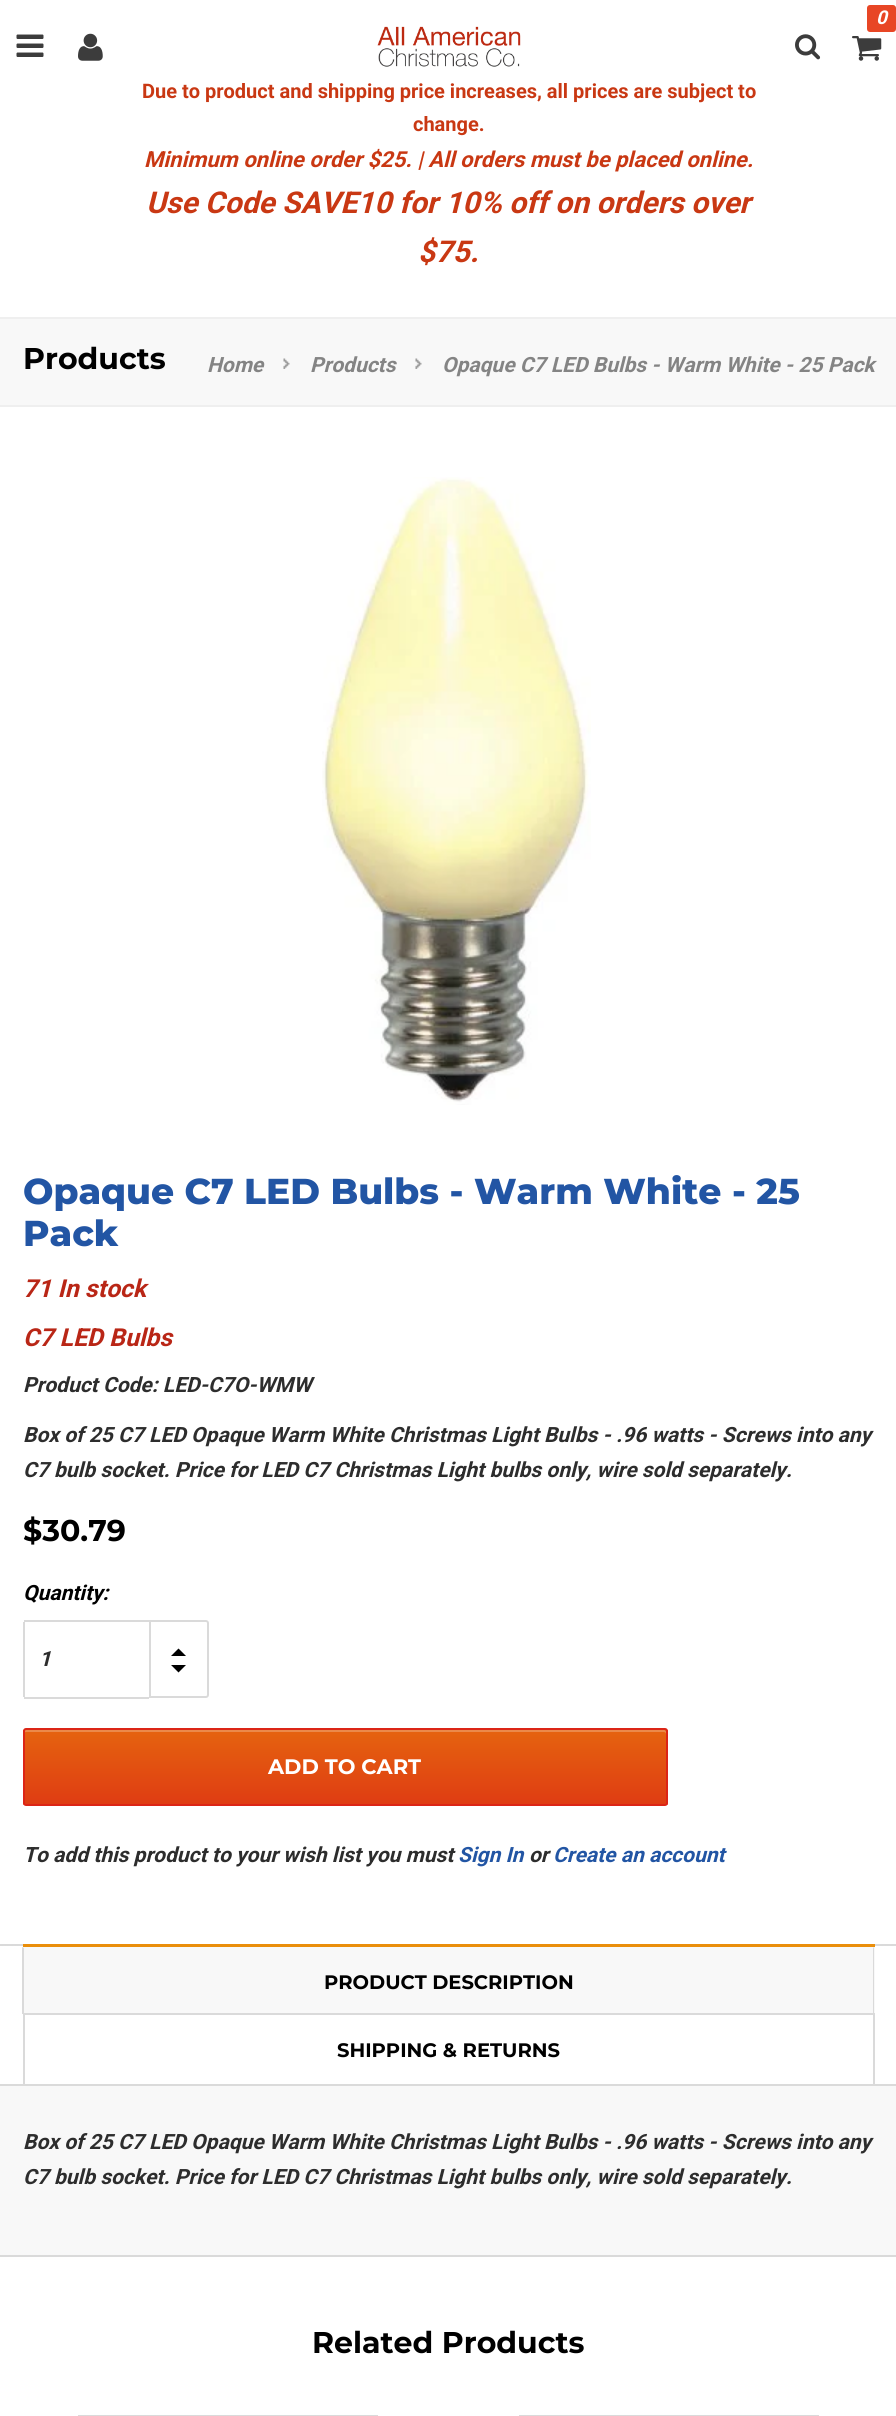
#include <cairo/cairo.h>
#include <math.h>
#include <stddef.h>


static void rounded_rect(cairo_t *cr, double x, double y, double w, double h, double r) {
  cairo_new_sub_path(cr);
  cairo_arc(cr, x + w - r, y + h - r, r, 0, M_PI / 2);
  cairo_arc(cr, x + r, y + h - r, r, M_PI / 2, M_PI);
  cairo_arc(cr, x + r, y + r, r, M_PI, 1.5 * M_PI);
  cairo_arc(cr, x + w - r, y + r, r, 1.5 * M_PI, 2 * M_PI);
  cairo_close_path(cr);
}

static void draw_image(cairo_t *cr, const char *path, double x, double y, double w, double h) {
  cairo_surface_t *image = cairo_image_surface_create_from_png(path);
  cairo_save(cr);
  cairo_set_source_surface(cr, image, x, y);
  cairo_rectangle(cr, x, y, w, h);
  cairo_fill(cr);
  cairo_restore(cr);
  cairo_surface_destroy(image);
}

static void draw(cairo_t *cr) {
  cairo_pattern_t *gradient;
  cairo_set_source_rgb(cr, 1, 1, 1);
  cairo_paint(cr);
  cairo_set_source_rgb(cr, 232 / 255.0, 70 / 255.0, 37 / 255.0);
  rounded_rect(cr, 867, 5, 29, 27, 3);
  cairo_fill(cr);
  draw_image(cr, "images/1.png", 852, 36, 30, 25);
  draw_image(cr, "images/2.png", 795, 34, 26, 26);
  draw_image(cr, "images/3.png", 16, 34, 28, 23);
  draw_image(cr, "images/4.png", 78, 33, 25, 28);
  draw_image(cr, "images/5.png", 377, 26, 144, 41);
  cairo_set_source_rgb(cr, 248 / 255.0, 248 / 255.0, 248 / 255.0);
  cairo_rectangle(cr, 0, 319, 896, 86);
  cairo_fill(cr);
  cairo_set_source_rgb(cr, 239 / 255.0, 239 / 255.0, 239 / 255.0);
  cairo_rectangle(cr, 0, 317, 896, 2);
  cairo_fill(cr);
  cairo_rectangle(cr, 0, 405, 896, 2);
  cairo_fill(cr);
  draw_image(cr, "images/6.png", 283, 358, 7, 11);
  draw_image(cr, "images/6.png", 415, 358, 7, 11);
  draw_image(cr, "images/7.png", 322, 477, 269, 628);
  cairo_set_source_rgb(cr, 218 / 255.0, 218 / 255.0, 218 / 255.0);
  cairo_rectangle(cr, 24, 1620, 125, 2);
  cairo_fill(cr);
  cairo_rectangle(cr, 24, 1697, 125, 2);
  cairo_fill(cr);
  cairo_rectangle(cr, 23, 1622, 2, 75);
  cairo_fill(cr);
  cairo_new_path(cr);
  cairo_move_to(cr, 150, 1621);
  cairo_line_to(cr, 206, 1621);
  cairo_curve_to(cr, 207, 1621, 208, 1622, 208, 1623);
  cairo_line_to(cr, 208, 1695);
  cairo_curve_to(cr, 208, 1696, 207, 1697, 206, 1697);
  cairo_line_to(cr, 150, 1697);
  cairo_close_path(cr);
  cairo_stroke(cr);
  cairo_set_source_rgb(cr, 0, 0, 0);
  cairo_new_path(cr);
  cairo_move_to(cr, 186, 1656);
  cairo_line_to(cr, 171, 1656);
  cairo_line_to(cr, 178.5, 1648.5);
  cairo_close_path(cr);
  cairo_move_to(cr, 171, 1665);
  cairo_line_to(cr, 186, 1665);
  cairo_line_to(cr, 178.5, 1672.5);
  cairo_close_path(cr);
  cairo_fill(cr);
  cairo_save(cr);
  rounded_rect(cr, 23, 1728, 645, 78, 3);
  cairo_clip(cr);
  gradient = cairo_pattern_create_linear(345, 1730, 345, 1805);
  cairo_pattern_add_color_stop_rgba(gradient, 0, 229 / 255.0, 99 / 255.0, 15 / 255.0, 1);
  cairo_pattern_add_color_stop_rgba(gradient, 1, 223 / 255.0, 60 / 255.0, 19 / 255.0, 1);
  cairo_set_source(cr, gradient);
  cairo_pattern_destroy(gradient);
  cairo_rectangle(cr, 23, 1730, 645, 75);
  cairo_fill(cr);
  cairo_restore(cr);
  cairo_set_source_rgb(cr, 235 / 255.0, 137 / 255.0, 74 / 255.0);
  cairo_new_path(cr);
  cairo_move_to(cr, 26, 1732);
  cairo_line_to(cr, 664, 1732);
  cairo_curve_to(cr, 665, 1732, 666, 1733, 666, 1734);
  cairo_line_to(cr, 666, 1732);
  cairo_curve_to(cr, 666, 1731, 665, 1730, 664, 1730);
  cairo_line_to(cr, 26, 1730);
  cairo_curve_to(cr, 25, 1730, 24, 1731, 24, 1732);
  cairo_line_to(cr, 24, 1734);
  cairo_curve_to(cr, 24, 1733, 25, 1732, 26, 1732);
  cairo_close_path(cr);
  cairo_fill(cr);
  rounded_rect(cr, 24, 1729, 643, 76, 2);
  cairo_set_source_rgb(cr, 220 / 255.0, 37 / 255.0, 22 / 255.0);
  cairo_stroke(cr);
  cairo_set_source_rgb(cr, 218 / 255.0, 218 / 255.0, 218 / 255.0);
  cairo_rectangle(cr, 0, 1944, 896, 2);
  cairo_fill(cr);
  cairo_set_source_rgb(cr, 234 / 255.0, 142 / 255.0, 10 / 255.0);
  cairo_rectangle(cr, 23, 1944, 852, 3);
  cairo_fill(cr);
  cairo_set_source_rgb(cr, 248 / 255.0, 248 / 255.0, 248 / 255.0);
  cairo_rectangle(cr, 23, 1947, 852, 66);
  cairo_fill(cr);
  cairo_set_source_rgb(cr, 218 / 255.0, 218 / 255.0, 218 / 255.0);
  cairo_new_path(cr);
  cairo_move_to(cr, 874, 1947);
  cairo_line_to(cr, 874, 2014);
  cairo_line_to(cr, 873, 2014);
  cairo_line_to(cr, 873, 1948);
  cairo_close_path(cr);
  cairo_fill(cr);
  cairo_new_path(cr);
  cairo_move_to(cr, 22, 2014);
  cairo_line_to(cr, 22, 1947);
  cairo_line_to(cr, 24, 1948);
  cairo_line_to(cr, 24, 2014);
  cairo_close_path(cr);
  cairo_fill(cr);
  cairo_rectangle(cr, 23, 2013, 852, 2);
  cairo_fill(cr);
  cairo_rectangle(cr, 873, 2013, 2, 71);
  cairo_fill(cr);
  cairo_rectangle(cr, 23, 2013, 2, 71);
  cairo_fill(cr);
  cairo_set_source_rgb(cr, 248 / 255.0, 248 / 255.0, 248 / 255.0);
  cairo_rectangle(cr, 0, 2086, 896, 169);
  cairo_fill(cr);
  cairo_set_source_rgb(cr, 218 / 255.0, 218 / 255.0, 218 / 255.0);
  cairo_rectangle(cr, 0, 2084, 896, 2);
  cairo_fill(cr);
  cairo_rectangle(cr, 0, 2255, 896, 2);
  cairo_fill(cr);
  cairo_rectangle(cr, 79, 2416, 298, 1);
  cairo_stroke(cr);
  cairo_rectangle(cr, 520, 2416, 298, 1);
  cairo_stroke(cr);
  cairo_select_font_face(cr, "Roboto", CAIRO_FONT_SLANT_ITALIC, CAIRO_FONT_WEIGHT_BOLD);
  cairo_set_font_size(cr, 19);
  cairo_set_source_rgb(cr, 1, 1, 1);
  cairo_move_to(cr, 876, 24);
  cairo_show_text(cr, "0");
  cairo_select_font_face(cr, "Roboto", CAIRO_FONT_SLANT_NORMAL, CAIRO_FONT_WEIGHT_BOLD);
  cairo_set_font_size(cr, 20);
  cairo_set_source_rgb(cr, 201 / 255.0, 56 / 255.0, 19 / 255.0);
  cairo_move_to(cr, 142, 98);
  cairo_show_text(cr, "Due to product and shipping price increases, all prices are subject to");
  cairo_move_to(cr, 413, 131);
  cairo_show_text(cr, "change.");
  cairo_select_font_face(cr, "Roboto", CAIRO_FONT_SLANT_ITALIC, CAIRO_FONT_WEIGHT_BOLD);
  cairo_set_font_size(cr, 22);
  cairo_move_to(cr, 144, 167);
  cairo_show_text(cr, "Minimum online order $25. | All orders must be placed online.");
  cairo_set_font_size(cr, 30);
  cairo_move_to(cr, 146, 213);
  cairo_show_text(cr, "Use Code SAVE10 for 10% off on orders over");
  cairo_move_to(cr, 418, 262);
  cairo_show_text(cr, "$75.");
  cairo_select_font_face(cr, "Montserrat", CAIRO_FONT_SLANT_NORMAL, CAIRO_FONT_WEIGHT_BOLD);
  cairo_set_source_rgb(cr, 0, 0, 0);
  cairo_move_to(cr, 23, 369);
  cairo_show_text(cr, "Products");
  cairo_select_font_face(cr, "Roboto", CAIRO_FONT_SLANT_ITALIC, CAIRO_FONT_WEIGHT_BOLD);
  cairo_set_font_size(cr, 21);
  cairo_set_source_rgb(cr, 132 / 255.0, 132 / 255.0, 132 / 255.0);
  cairo_move_to(cr, 207, 372);
  cairo_show_text(cr, "Home");
  cairo_move_to(cr, 310, 372);
  cairo_show_text(cr, "Products");
  cairo_move_to(cr, 442, 372);
  cairo_show_text(cr, "Opaque C7 LED Bulbs - Warm White - 25 Pack");
  cairo_select_font_face(cr, "Montserrat ExtraBold", CAIRO_FONT_SLANT_NORMAL, CAIRO_FONT_WEIGHT_NORMAL);
  cairo_set_font_size(cr, 36);
  cairo_set_source_rgb(cr, 34 / 255.0, 85 / 255.0, 164 / 255.0);
  cairo_move_to(cr, 23, 1204);
  cairo_show_text(cr, "Opaque C7 LED Bulbs - Warm White - 25");
  cairo_move_to(cr, 23, 1246);
  cairo_show_text(cr, "Pack");
  cairo_select_font_face(cr, "Roboto", CAIRO_FONT_SLANT_ITALIC, CAIRO_FONT_WEIGHT_BOLD);
  cairo_set_font_size(cr, 24.75);
  cairo_set_source_rgb(cr, 185 / 255.0, 38 / 255.0, 22 / 255.0);
  cairo_move_to(cr, 23, 1297);
  cairo_show_text(cr, "71 In stock");
  cairo_move_to(cr, 23, 1346);
  cairo_show_text(cr, "C7 LED Bulbs");
  cairo_set_font_size(cr, 21);
  cairo_set_source_rgb(cr, 45 / 255.0, 45 / 255.0, 45 / 255.0);
  cairo_move_to(cr, 23, 1392);
  cairo_show_text(cr, "Product Code: LED-C7O-WMW");
  cairo_move_to(cr, 23, 1442);
  cairo_show_text(cr, "Box of 25 C7 LED Opaque Warm White Christmas Light Bulbs - .96 watts - Screws into any");
  cairo_move_to(cr, 23, 1477);
  cairo_show_text(cr, "C7 bulb socket. Price for LED C7 Christmas Light bulbs only, wire sold separately.");
  cairo_select_font_face(cr, "Montserrat", CAIRO_FONT_SLANT_NORMAL, CAIRO_FONT_WEIGHT_BOLD);
  cairo_set_font_size(cr, 30);
  cairo_set_source_rgb(cr, 0, 0, 0);
  cairo_move_to(cr, 23, 1541);
  cairo_show_text(cr, "$30.79");
  cairo_select_font_face(cr, "Roboto", CAIRO_FONT_SLANT_ITALIC, CAIRO_FONT_WEIGHT_BOLD);
  cairo_set_font_size(cr, 21);
  cairo_move_to(cr, 23, 1600);
  cairo_show_text(cr, "Quantity:");
  cairo_set_source_rgb(cr, 45 / 255.0, 45 / 255.0, 45 / 255.0);
  cairo_move_to(cr, 39, 1666);
  cairo_show_text(cr, "1");
  cairo_select_font_face(cr, "Montserrat", CAIRO_FONT_SLANT_NORMAL, CAIRO_FONT_WEIGHT_BOLD);
  cairo_set_source_rgb(cr, 1, 1, 1);
  cairo_move_to(cr, 268, 1774);
  cairo_show_text(cr, "ADD TO CART");
  cairo_select_font_face(cr, "Roboto", CAIRO_FONT_SLANT_ITALIC, CAIRO_FONT_WEIGHT_BOLD);
  cairo_set_source_rgb(cr, 45 / 255.0, 45 / 255.0, 45 / 255.0);
  cairo_move_to(cr, 23, 1862);
  cairo_show_text(cr, "To add this product to your wish list you must");
  cairo_set_source_rgb(cr, 34 / 255.0, 85 / 255.0, 164 / 255.0);
  cairo_move_to(cr, 458, 1862);
  cairo_show_text(cr, "Sign In");
  cairo_set_source_rgb(cr, 45 / 255.0, 45 / 255.0, 45 / 255.0);
  cairo_move_to(cr, 529, 1862);
  cairo_show_text(cr, "or");
  cairo_set_source_rgb(cr, 34 / 255.0, 85 / 255.0, 164 / 255.0);
  cairo_move_to(cr, 553, 1862);
  cairo_show_text(cr, "Create an account");
  cairo_select_font_face(cr, "Montserrat", CAIRO_FONT_SLANT_NORMAL, CAIRO_FONT_WEIGHT_BOLD);
  cairo_set_font_size(cr, 19.5);
  cairo_set_source_rgb(cr, 0, 0, 0);
  cairo_move_to(cr, 324, 1989);
  cairo_show_text(cr, "PRODUCT DESCRIPTION");
  cairo_move_to(cr, 337, 2057);
  cairo_show_text(cr, "SHIPPING & RETURNS");
  cairo_select_font_face(cr, "Roboto", CAIRO_FONT_SLANT_ITALIC, CAIRO_FONT_WEIGHT_BOLD);
  cairo_set_font_size(cr, 21);
  cairo_set_source_rgb(cr, 45 / 255.0, 45 / 255.0, 45 / 255.0);
  cairo_move_to(cr, 23, 2149);
  cairo_show_text(cr, "Box of 25 C7 LED Opaque Warm White Christmas Light Bulbs - .96 watts - Screws into any");
  cairo_move_to(cr, 23, 2184);
  cairo_show_text(cr, "C7 bulb socket. Price for LED C7 Christmas Light bulbs only, wire sold separately.");
  cairo_select_font_face(cr, "Montserrat", CAIRO_FONT_SLANT_NORMAL, CAIRO_FONT_WEIGHT_BOLD);
  cairo_set_font_size(cr, 30);
  cairo_set_source_rgb(cr, 0, 0, 0);
  cairo_move_to(cr, 312, 2353);
  cairo_show_text(cr, "Related Products");
}

int main(void) {
  cairo_surface_t *surface = cairo_image_surface_create(CAIRO_FORMAT_RGB24, 896, 2416);
  cairo_t *cr = cairo_create(surface);
  cairo_font_options_t *options = cairo_font_options_create();
  cairo_font_options_set_hint_metrics(options, CAIRO_HINT_METRICS_OFF);
  cairo_font_options_set_hint_style(options, CAIRO_HINT_STYLE_NONE);
  cairo_set_font_options(cr, options);
  cairo_set_miter_limit(cr, 4);
  draw(cr);
  cairo_surface_write_to_png(surface, "out.png");
  cairo_font_options_destroy(options);
  cairo_destroy(cr);
  cairo_surface_destroy(surface);
  return 0;
}
